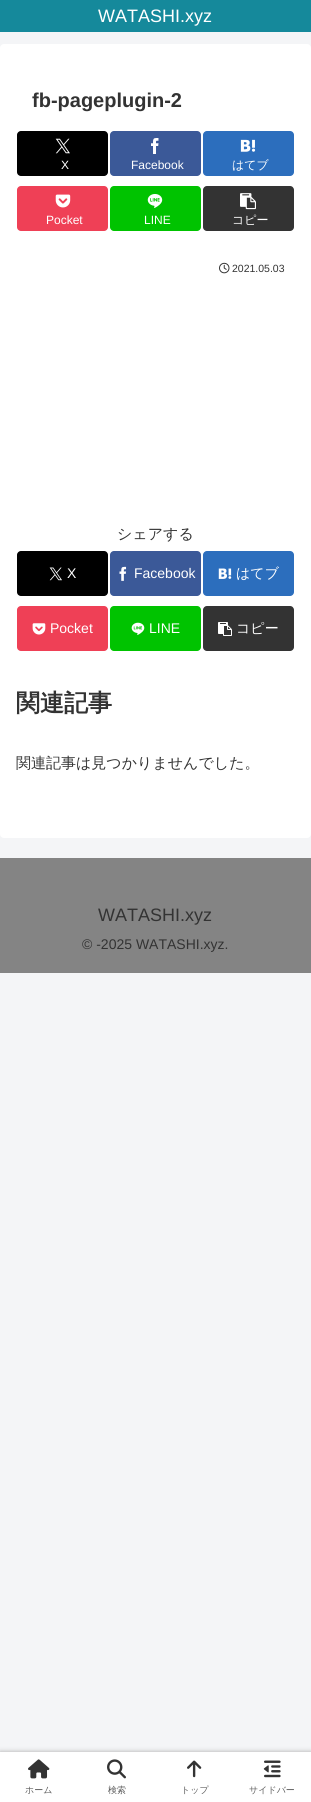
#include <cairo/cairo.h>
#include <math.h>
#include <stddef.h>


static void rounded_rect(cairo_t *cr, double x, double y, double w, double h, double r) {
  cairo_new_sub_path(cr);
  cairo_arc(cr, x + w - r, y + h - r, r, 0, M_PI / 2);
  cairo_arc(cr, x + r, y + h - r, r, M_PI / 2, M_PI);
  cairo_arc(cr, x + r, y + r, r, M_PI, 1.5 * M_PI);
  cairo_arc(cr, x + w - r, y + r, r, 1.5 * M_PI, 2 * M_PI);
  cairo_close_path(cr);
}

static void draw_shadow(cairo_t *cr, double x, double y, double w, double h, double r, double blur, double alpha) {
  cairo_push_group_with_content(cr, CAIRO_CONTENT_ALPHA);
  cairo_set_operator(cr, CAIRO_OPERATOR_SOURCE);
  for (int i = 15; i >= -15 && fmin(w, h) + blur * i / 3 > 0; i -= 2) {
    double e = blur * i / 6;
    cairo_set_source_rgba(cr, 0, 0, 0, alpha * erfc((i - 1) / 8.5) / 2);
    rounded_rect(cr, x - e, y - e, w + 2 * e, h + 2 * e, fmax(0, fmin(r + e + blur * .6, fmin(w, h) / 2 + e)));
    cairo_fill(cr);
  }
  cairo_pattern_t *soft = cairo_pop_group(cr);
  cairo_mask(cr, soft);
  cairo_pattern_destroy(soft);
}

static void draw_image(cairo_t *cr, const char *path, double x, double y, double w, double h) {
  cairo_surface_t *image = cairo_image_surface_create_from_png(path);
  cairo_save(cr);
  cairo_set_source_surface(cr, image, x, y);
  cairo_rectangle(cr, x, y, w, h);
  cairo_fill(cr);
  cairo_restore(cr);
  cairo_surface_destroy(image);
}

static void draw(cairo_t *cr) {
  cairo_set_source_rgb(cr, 244 / 255.0, 245 / 255.0, 247 / 255.0);
  cairo_paint(cr);
  cairo_set_source_rgb(cr, 21 / 255.0, 137 / 255.0, 155 / 255.0);
  cairo_rectangle(cr, 0, 0, 311, 32);
  cairo_fill(cr);
  cairo_set_source_rgb(cr, 1, 1, 1);
  rounded_rect(cr, 0, 44, 311, 794, 4);
  cairo_fill(cr);
  cairo_set_source_rgb(cr, 0, 0, 0);
  rounded_rect(cr, 17, 131, 91, 45, 4);
  cairo_fill(cr);
  draw_image(cr, "images/1.png", 55, 138, 15, 16);
  cairo_set_source_rgb(cr, 59 / 255.0, 89 / 255.0, 152 / 255.0);
  rounded_rect(cr, 110, 131, 91, 45, 4);
  cairo_fill(cr);
  draw_image(cr, "images/2.png", 151, 138, 8, 16);
  cairo_set_source_rgb(cr, 44 / 255.0, 110 / 255.0, 189 / 255.0);
  rounded_rect(cr, 203, 131, 91, 45, 4);
  cairo_fill(cr);
  draw_image(cr, "images/3.png", 240, 139, 16, 13);
  cairo_set_source_rgb(cr, 239 / 255.0, 64 / 255.0, 86 / 255.0);
  rounded_rect(cr, 17, 186, 91, 45, 4);
  cairo_fill(cr);
  draw_image(cr, "images/4.png", 55, 194, 16, 14);
  cairo_set_source_rgb(cr, 0, 195 / 255.0, 0);
  rounded_rect(cr, 110, 186, 91, 45, 4);
  cairo_fill(cr);
  draw_image(cr, "images/5.png", 147, 194, 16, 14);
  cairo_set_source_rgb(cr, 51 / 255.0, 51 / 255.0, 51 / 255.0);
  rounded_rect(cr, 203, 186, 91, 45, 4);
  cairo_fill(cr);
  draw_image(cr, "images/6.png", 240, 193, 16, 17);
  draw_image(cr, "images/7.png", 219, 262, 11, 12);
  cairo_set_source_rgb(cr, 0, 0, 0);
  rounded_rect(cr, 17, 551, 91, 45, 4);
  cairo_fill(cr);
  draw_image(cr, "images/8.png", 49, 567, 13, 14);
  cairo_set_source_rgb(cr, 59 / 255.0, 89 / 255.0, 152 / 255.0);
  rounded_rect(cr, 110, 551, 91, 45, 4);
  cairo_fill(cr);
  draw_image(cr, "images/9.png", 119, 566, 8, 15);
  cairo_set_source_rgb(cr, 44 / 255.0, 110 / 255.0, 189 / 255.0);
  rounded_rect(cr, 203, 551, 91, 45, 4);
  cairo_fill(cr);
  draw_image(cr, "images/10.png", 218, 568, 14, 11);
  cairo_set_source_rgb(cr, 239 / 255.0, 64 / 255.0, 86 / 255.0);
  rounded_rect(cr, 17, 606, 91, 45, 4);
  cairo_fill(cr);
  draw_image(cr, "images/11.png", 32, 623, 14, 12);
  cairo_set_source_rgb(cr, 0, 195 / 255.0, 0);
  rounded_rect(cr, 110, 606, 91, 45, 4);
  cairo_fill(cr);
  draw_image(cr, "images/12.png", 131, 622, 14, 13);
  cairo_set_source_rgb(cr, 51 / 255.0, 51 / 255.0, 51 / 255.0);
  rounded_rect(cr, 203, 606, 91, 45, 4);
  cairo_fill(cr);
  draw_image(cr, "images/13.png", 218, 622, 14, 14);
  cairo_set_source_rgb(cr, 132 / 255.0, 132 / 255.0, 132 / 255.0);
  cairo_rectangle(cr, 0, 858, 311, 115);
  cairo_fill(cr);
  cairo_set_source_rgb(cr, 169 / 255.0, 169 / 255.0, 169 / 255.0);
  draw_shadow(cr, 0, 1752, 311, 50, 0, 2.5, 1);
  cairo_set_source_rgb(cr, 1, 1, 1);
  cairo_rectangle(cr, 0, 1752, 311, 50);
  cairo_fill(cr);
  draw_image(cr, "images/14.png", 28, 1759, 22, 20);
  draw_image(cr, "images/15.png", 107, 1759, 19, 20);
  draw_image(cr, "images/16.png", 187, 1760, 15, 18);
  draw_image(cr, "images/17.png", 263, 1760, 18, 18);
  cairo_select_font_face(cr, "Liberation Sans", CAIRO_FONT_SLANT_NORMAL, CAIRO_FONT_WEIGHT_NORMAL);
  cairo_set_font_size(cr, 18);
  cairo_move_to(cr, 98, 22);
  cairo_show_text(cr, "WATASHI.xyz");
  cairo_select_font_face(cr, "Liberation Sans", CAIRO_FONT_SLANT_NORMAL, CAIRO_FONT_WEIGHT_BOLD);
  cairo_set_font_size(cr, 20);
  cairo_set_source_rgb(cr, 51 / 255.0, 51 / 255.0, 51 / 255.0);
  cairo_move_to(cr, 32, 107);
  cairo_show_text(cr, "fb-pageplugin-2");
  cairo_select_font_face(cr, "Liberation Sans", CAIRO_FONT_SLANT_NORMAL, CAIRO_FONT_WEIGHT_NORMAL);
  cairo_set_font_size(cr, 12);
  cairo_set_source_rgb(cr, 1, 1, 1);
  cairo_move_to(cr, 61, 169);
  cairo_show_text(cr, "X");
  cairo_move_to(cr, 131, 169);
  cairo_show_text(cr, "Facebook");
  cairo_select_font_face(cr, "WenQuanYi Zen Hei Medium", CAIRO_FONT_SLANT_NORMAL, CAIRO_FONT_WEIGHT_NORMAL);
  cairo_move_to(cr, 232, 169);
  cairo_show_text(cr, "はてブ");
  cairo_select_font_face(cr, "Liberation Sans", CAIRO_FONT_SLANT_NORMAL, CAIRO_FONT_WEIGHT_NORMAL);
  cairo_move_to(cr, 46, 224);
  cairo_show_text(cr, "Pocket");
  cairo_move_to(cr, 144, 224);
  cairo_show_text(cr, "LINE");
  cairo_select_font_face(cr, "WenQuanYi Zen Hei Medium", CAIRO_FONT_SLANT_NORMAL, CAIRO_FONT_WEIGHT_NORMAL);
  cairo_move_to(cr, 232, 224);
  cairo_show_text(cr, "コピー");
  cairo_select_font_face(cr, "Liberation Sans", CAIRO_FONT_SLANT_NORMAL, CAIRO_FONT_WEIGHT_NORMAL);
  cairo_set_font_size(cr, 10.5);
  cairo_set_source_rgb(cr, 51 / 255.0, 51 / 255.0, 51 / 255.0);
  cairo_move_to(cr, 232, 272);
  cairo_show_text(cr, "2021.05.03");
  cairo_select_font_face(cr, "WenQuanYi Zen Hei Medium", CAIRO_FONT_SLANT_NORMAL, CAIRO_FONT_WEIGHT_NORMAL);
  cairo_set_font_size(cr, 15);
  cairo_move_to(cr, 117, 539);
  cairo_show_text(cr, "シェアする");
  cairo_select_font_face(cr, "Liberation Sans", CAIRO_FONT_SLANT_NORMAL, CAIRO_FONT_WEIGHT_NORMAL);
  cairo_set_font_size(cr, 14);
  cairo_set_source_rgb(cr, 1, 1, 1);
  cairo_move_to(cr, 67, 578);
  cairo_show_text(cr, "X");
  cairo_move_to(cr, 134, 578);
  cairo_show_text(cr, "Facebook");
  cairo_select_font_face(cr, "WenQuanYi Zen Hei Medium", CAIRO_FONT_SLANT_NORMAL, CAIRO_FONT_WEIGHT_NORMAL);
  cairo_move_to(cr, 236, 578);
  cairo_show_text(cr, "はてブ");
  cairo_select_font_face(cr, "Liberation Sans", CAIRO_FONT_SLANT_NORMAL, CAIRO_FONT_WEIGHT_NORMAL);
  cairo_move_to(cr, 50, 633);
  cairo_show_text(cr, "Pocket");
  cairo_move_to(cr, 149, 633);
  cairo_show_text(cr, "LINE");
  cairo_select_font_face(cr, "WenQuanYi Zen Hei Medium", CAIRO_FONT_SLANT_NORMAL, CAIRO_FONT_WEIGHT_NORMAL);
  cairo_move_to(cr, 236, 633);
  cairo_show_text(cr, "コピー");
  cairo_select_font_face(cr, "WenQuanYi Zen Hei", CAIRO_FONT_SLANT_NORMAL, CAIRO_FONT_WEIGHT_BOLD);
  cairo_set_font_size(cr, 24);
  cairo_set_source_rgb(cr, 51 / 255.0, 51 / 255.0, 51 / 255.0);
  cairo_move_to(cr, 16, 711);
  cairo_show_text(cr, "関連記事");
  cairo_select_font_face(cr, "WenQuanYi Zen Hei Medium", CAIRO_FONT_SLANT_NORMAL, CAIRO_FONT_WEIGHT_NORMAL);
  cairo_set_font_size(cr, 15);
  cairo_move_to(cr, 16, 768);
  cairo_show_text(cr, "関連記事は見つかりませんでした。");
  cairo_select_font_face(cr, "Liberation Sans", CAIRO_FONT_SLANT_NORMAL, CAIRO_FONT_WEIGHT_NORMAL);
  cairo_set_font_size(cr, 18);
  cairo_move_to(cr, 98, 921);
  cairo_show_text(cr, "WATASHI.xyz");
  cairo_set_font_size(cr, 14);
  cairo_move_to(cr, 82, 949);
  cairo_show_text(cr, "© -2025 WATASHI.xyz.");
  cairo_select_font_face(cr, "WenQuanYi Zen Hei Medium", CAIRO_FONT_SLANT_NORMAL, CAIRO_FONT_WEIGHT_NORMAL);
  cairo_set_font_size(cr, 9);
  cairo_set_source_rgb(cr, 92 / 255.0, 92 / 255.0, 92 / 255.0);
  cairo_move_to(cr, 25, 1793);
  cairo_show_text(cr, "ホーム");
  cairo_move_to(cr, 108, 1793);
  cairo_show_text(cr, "検索");
  cairo_move_to(cr, 181, 1793);
  cairo_show_text(cr, "トップ");
  cairo_move_to(cr, 249, 1793);
  cairo_show_text(cr, "サイドバー");
}

int main(void) {
  cairo_surface_t *surface = cairo_image_surface_create(CAIRO_FORMAT_RGB24, 311, 1802);
  cairo_t *cr = cairo_create(surface);
  cairo_font_options_t *options = cairo_font_options_create();
  cairo_font_options_set_hint_metrics(options, CAIRO_HINT_METRICS_OFF);
  cairo_font_options_set_hint_style(options, CAIRO_HINT_STYLE_NONE);
  cairo_set_font_options(cr, options);
  cairo_set_miter_limit(cr, 4);
  draw(cr);
  cairo_surface_write_to_png(surface, "out.png");
  cairo_font_options_destroy(options);
  cairo_destroy(cr);
  cairo_surface_destroy(surface);
  return 0;
}
